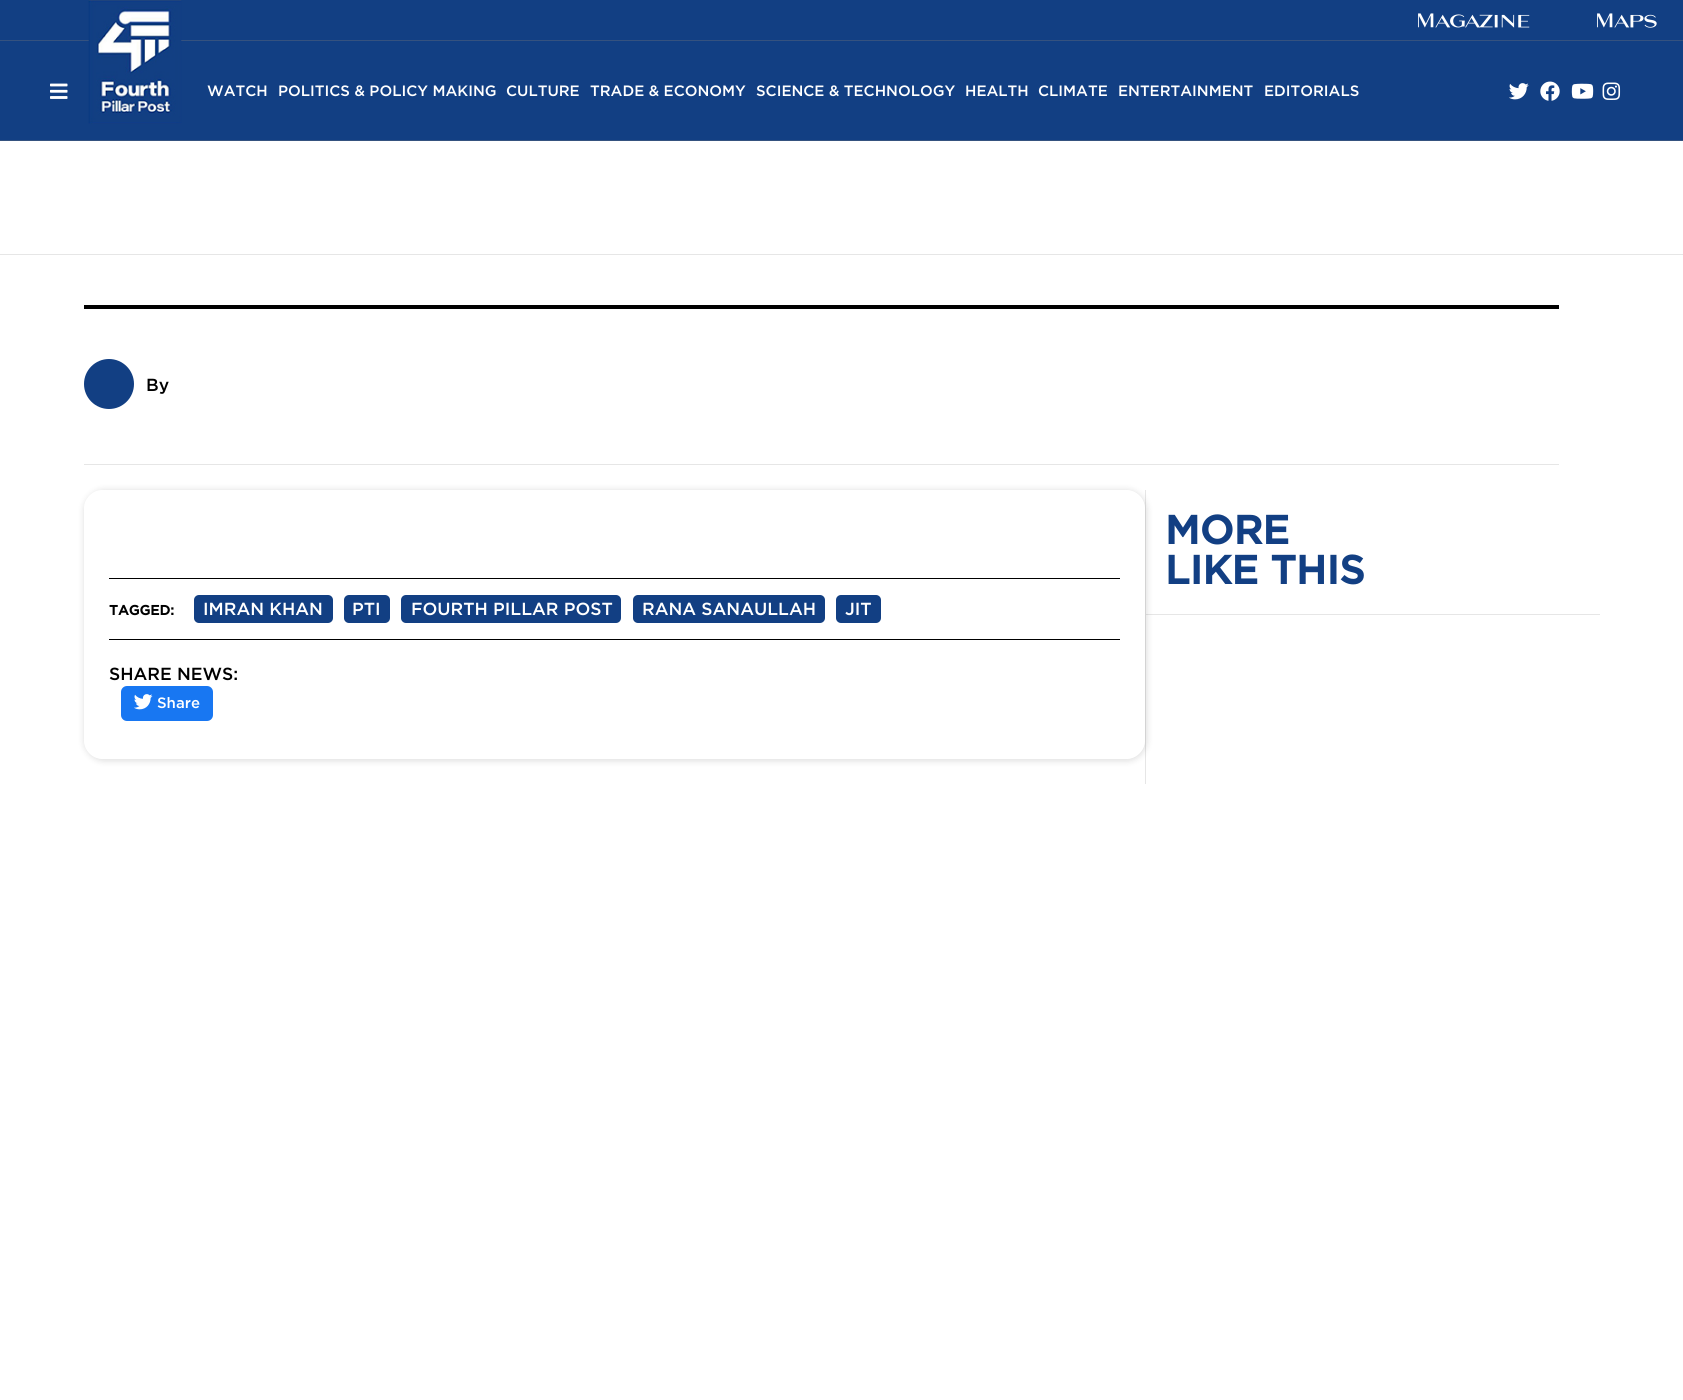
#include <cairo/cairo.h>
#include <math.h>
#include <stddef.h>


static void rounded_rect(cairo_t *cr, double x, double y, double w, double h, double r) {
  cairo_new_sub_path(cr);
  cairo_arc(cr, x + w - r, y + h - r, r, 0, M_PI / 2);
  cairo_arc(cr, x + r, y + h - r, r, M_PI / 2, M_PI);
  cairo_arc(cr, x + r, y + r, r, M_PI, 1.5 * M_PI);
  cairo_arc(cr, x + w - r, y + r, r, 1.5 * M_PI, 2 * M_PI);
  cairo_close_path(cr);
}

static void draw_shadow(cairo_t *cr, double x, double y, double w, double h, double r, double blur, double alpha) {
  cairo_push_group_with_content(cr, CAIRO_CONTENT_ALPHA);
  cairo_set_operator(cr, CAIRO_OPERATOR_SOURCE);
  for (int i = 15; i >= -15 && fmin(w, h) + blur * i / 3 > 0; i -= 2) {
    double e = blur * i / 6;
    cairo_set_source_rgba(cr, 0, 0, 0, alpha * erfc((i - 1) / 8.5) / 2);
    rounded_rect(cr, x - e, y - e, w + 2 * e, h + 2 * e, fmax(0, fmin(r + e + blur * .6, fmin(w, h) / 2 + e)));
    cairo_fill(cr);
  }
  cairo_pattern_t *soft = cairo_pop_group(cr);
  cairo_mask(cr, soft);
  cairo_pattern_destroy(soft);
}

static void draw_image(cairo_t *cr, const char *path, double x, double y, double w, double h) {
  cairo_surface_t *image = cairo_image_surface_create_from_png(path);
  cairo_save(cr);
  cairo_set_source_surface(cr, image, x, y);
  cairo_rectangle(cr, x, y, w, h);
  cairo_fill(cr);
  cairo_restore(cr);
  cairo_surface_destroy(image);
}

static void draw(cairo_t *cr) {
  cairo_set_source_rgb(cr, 1, 1, 1);
  cairo_paint(cr);
  cairo_set_source_rgb(cr, 18 / 255.0, 63 / 255.0, 131 / 255.0);
  cairo_rectangle(cr, 0, 0, 1683, 40);
  cairo_fill(cr);
  cairo_rectangle(cr, 0, 41, 1683, 99);
  cairo_fill(cr);
  cairo_set_source_rgb(cr, 53 / 255.0, 82 / 255.0, 127 / 255.0);
  cairo_rectangle(cr, 0, 40, 1683, 1);
  cairo_fill(cr);
  cairo_rectangle(cr, 0, 140, 1683, 1);
  cairo_fill(cr);
  draw_image(cr, "images/1.png", 50, 83, 18, 16);
  draw_image(cr, "images/2.png", 88, 0, 94, 124);
  draw_image(cr, "images/3.png", 1509, 83, 20, 17);
  draw_image(cr, "images/4.png", 1540, 81, 20, 20);
  draw_image(cr, "images/5.png", 1571, 83, 23, 16);
  draw_image(cr, "images/6.png", 1602, 82, 19, 18);
  cairo_set_source_rgb(cr, 230 / 255.0, 230 / 255.0, 230 / 255.0);
  cairo_rectangle(cr, 0, 254, 1683, 1);
  cairo_fill(cr);
  cairo_set_source_rgb(cr, 0, 0, 0);
  cairo_rectangle(cr, 84, 305, 1475, 4);
  cairo_fill(cr);
  cairo_set_source_rgb(cr, 18 / 255.0, 63 / 255.0, 131 / 255.0);
  cairo_arc(cr, 109, 384, 25, 0, 2 * M_PI);
  cairo_fill(cr);
  cairo_set_source_rgb(cr, 230 / 255.0, 230 / 255.0, 230 / 255.0);
  cairo_rectangle(cr, 84, 464, 1475, 1);
  cairo_fill(cr);
  cairo_save(cr);
  cairo_set_fill_rule(cr, CAIRO_FILL_RULE_EVEN_ODD);
  cairo_new_path(cr);
  cairo_move_to(cr, 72, 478);
  cairo_line_to(cr, 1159, 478);
  cairo_line_to(cr, 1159, 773);
  cairo_line_to(cr, 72, 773);
  cairo_close_path(cr);
  cairo_move_to(cr, 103, 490);
  cairo_line_to(cr, 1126, 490);
  cairo_curve_to(cr, 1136.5, 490, 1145, 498.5, 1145, 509);
  cairo_line_to(cr, 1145, 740);
  cairo_curve_to(cr, 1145, 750.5, 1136.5, 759, 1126, 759);
  cairo_line_to(cr, 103, 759);
  cairo_curve_to(cr, 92.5, 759, 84, 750.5, 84, 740);
  cairo_line_to(cr, 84, 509);
  cairo_curve_to(cr, 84, 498.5, 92.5, 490, 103, 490);
  cairo_close_path(cr);
  cairo_clip(cr);
  cairo_set_source_rgb(cr, 0, 0, 0);
  draw_shadow(cr, 85, 491, 1061, 269, 19, 4, 0.16);
  cairo_restore(cr);
  cairo_set_source_rgba(cr, 0, 0, 0, 0.1);
  cairo_rectangle(cr, 1145, 490, 1, 294);
  cairo_fill(cr);
  cairo_rectangle(cr, 1146, 614, 454, 1);
  cairo_fill(cr);
  cairo_set_source_rgb(cr, 0, 0, 0);
  cairo_rectangle(cr, 109, 578, 1011, 1);
  cairo_fill(cr);
  cairo_set_source_rgb(cr, 18 / 255.0, 63 / 255.0, 131 / 255.0);
  rounded_rect(cr, 194, 595, 139, 28, 5);
  cairo_fill(cr);
  rounded_rect(cr, 344, 595, 46, 28, 5);
  cairo_fill(cr);
  rounded_rect(cr, 401, 595, 220, 28, 5);
  cairo_fill(cr);
  rounded_rect(cr, 633, 595, 192, 28, 5);
  cairo_fill(cr);
  rounded_rect(cr, 836, 595, 45, 28, 5);
  cairo_fill(cr);
  cairo_set_source_rgb(cr, 0, 0, 0);
  cairo_rectangle(cr, 109, 639, 1011, 1);
  cairo_fill(cr);
  cairo_set_source_rgb(cr, 24 / 255.0, 119 / 255.0, 242 / 255.0);
  rounded_rect(cr, 121, 686, 92, 35, 6);
  cairo_fill(cr);
  draw_image(cr, "images/7.png", 134, 694, 19, 16);
  cairo_select_font_face(cr, "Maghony", CAIRO_FONT_SLANT_NORMAL, CAIRO_FONT_WEIGHT_BOLD);
  cairo_set_font_size(cr, 17.5);
  cairo_set_source_rgb(cr, 1, 1, 1);
  cairo_move_to(cr, 1416, 29);
  cairo_show_text(cr, "Magazine");
  cairo_move_to(cr, 1595, 29);
  cairo_show_text(cr, "Maps");
  cairo_select_font_face(cr, "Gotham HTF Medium", CAIRO_FONT_SLANT_NORMAL, CAIRO_FONT_WEIGHT_NORMAL);
  cairo_set_font_size(cr, 15);
  cairo_move_to(cr, 207, 96);
  cairo_show_text(cr, "WATCH");
  cairo_move_to(cr, 278, 96);
  cairo_show_text(cr, "POLITICS & POLICY MAKING");
  cairo_move_to(cr, 506, 96);
  cairo_show_text(cr, "CULTURE");
  cairo_move_to(cr, 590, 96);
  cairo_show_text(cr, "TRADE & ECONOMY");
  cairo_move_to(cr, 756, 96);
  cairo_show_text(cr, "SCIENCE & TECHNOLOGY");
  cairo_move_to(cr, 965, 96);
  cairo_show_text(cr, "HEALTH");
  cairo_move_to(cr, 1038, 96);
  cairo_show_text(cr, "CLIMATE");
  cairo_move_to(cr, 1118, 96);
  cairo_show_text(cr, "ENTERTAINMENT");
  cairo_move_to(cr, 1264, 96);
  cairo_show_text(cr, "EDITORIALS");
  cairo_set_font_size(cr, 17.5);
  cairo_set_source_rgb(cr, 0, 0, 0);
  cairo_move_to(cr, 146, 391);
  cairo_show_text(cr, "By");
  cairo_select_font_face(cr, "Gotham HTF", CAIRO_FONT_SLANT_NORMAL, CAIRO_FONT_WEIGHT_BOLD);
  cairo_set_font_size(cr, 40);
  cairo_set_source_rgb(cr, 18 / 255.0, 63 / 255.0, 131 / 255.0);
  cairo_move_to(cr, 1165, 544);
  cairo_show_text(cr, "MORE");
  cairo_move_to(cr, 1165, 584);
  cairo_show_text(cr, "LIKE THIS");
  cairo_select_font_face(cr, "Gotham HTF Medium", CAIRO_FONT_SLANT_NORMAL, CAIRO_FONT_WEIGHT_NORMAL);
  cairo_set_font_size(cr, 17.5);
  cairo_set_source_rgb(cr, 1, 1, 1);
  cairo_move_to(cr, 203, 615);
  cairo_show_text(cr, "IMRAN KHAN");
  cairo_move_to(cr, 352, 615);
  cairo_show_text(cr, "PTI");
  cairo_move_to(cr, 411, 615);
  cairo_show_text(cr, "FOURTH PILLAR POST");
  cairo_move_to(cr, 642, 615);
  cairo_show_text(cr, "RANA SANAULLAH");
  cairo_move_to(cr, 845, 615);
  cairo_show_text(cr, "JIT");
  cairo_set_source_rgb(cr, 0, 0, 0);
  cairo_move_to(cr, 109, 680);
  cairo_show_text(cr, "SHARE NEWS:");
  cairo_set_font_size(cr, 15);
  cairo_set_source_rgb(cr, 1, 1, 1);
  cairo_move_to(cr, 157, 708);
  cairo_show_text(cr, "Share");
  cairo_select_font_face(cr, "Gotham HTF", CAIRO_FONT_SLANT_NORMAL, CAIRO_FONT_WEIGHT_BOLD);
  cairo_set_font_size(cr, 13.75);
  cairo_set_source_rgb(cr, 0, 0, 0);
  cairo_move_to(cr, 109, 615);
  cairo_show_text(cr, "TAGGED:");
}

int main(void) {
  cairo_surface_t *surface = cairo_image_surface_create(CAIRO_FORMAT_RGB24, 1683, 1400);
  cairo_t *cr = cairo_create(surface);
  cairo_font_options_t *options = cairo_font_options_create();
  cairo_font_options_set_hint_metrics(options, CAIRO_HINT_METRICS_OFF);
  cairo_font_options_set_hint_style(options, CAIRO_HINT_STYLE_NONE);
  cairo_set_font_options(cr, options);
  cairo_set_miter_limit(cr, 4);
  draw(cr);
  cairo_surface_write_to_png(surface, "out.png");
  cairo_font_options_destroy(options);
  cairo_destroy(cr);
  cairo_surface_destroy(surface);
  return 0;
}
